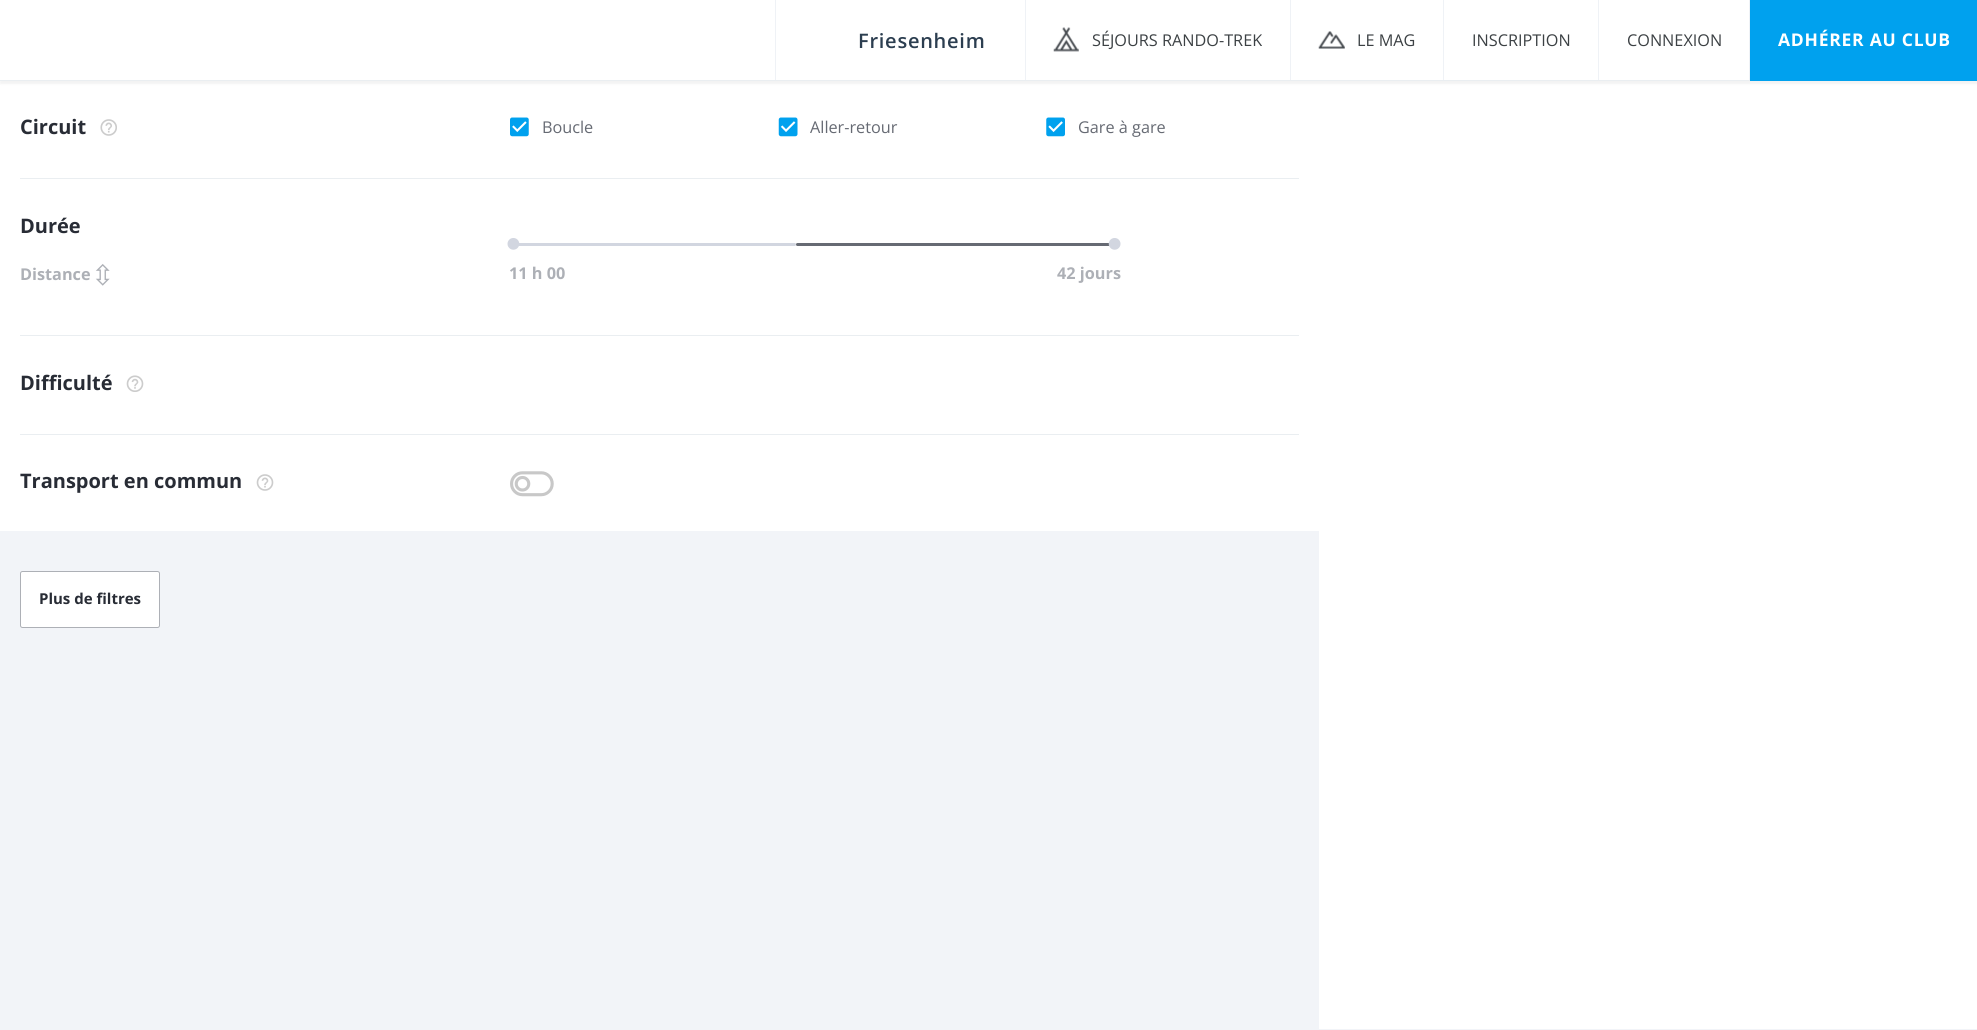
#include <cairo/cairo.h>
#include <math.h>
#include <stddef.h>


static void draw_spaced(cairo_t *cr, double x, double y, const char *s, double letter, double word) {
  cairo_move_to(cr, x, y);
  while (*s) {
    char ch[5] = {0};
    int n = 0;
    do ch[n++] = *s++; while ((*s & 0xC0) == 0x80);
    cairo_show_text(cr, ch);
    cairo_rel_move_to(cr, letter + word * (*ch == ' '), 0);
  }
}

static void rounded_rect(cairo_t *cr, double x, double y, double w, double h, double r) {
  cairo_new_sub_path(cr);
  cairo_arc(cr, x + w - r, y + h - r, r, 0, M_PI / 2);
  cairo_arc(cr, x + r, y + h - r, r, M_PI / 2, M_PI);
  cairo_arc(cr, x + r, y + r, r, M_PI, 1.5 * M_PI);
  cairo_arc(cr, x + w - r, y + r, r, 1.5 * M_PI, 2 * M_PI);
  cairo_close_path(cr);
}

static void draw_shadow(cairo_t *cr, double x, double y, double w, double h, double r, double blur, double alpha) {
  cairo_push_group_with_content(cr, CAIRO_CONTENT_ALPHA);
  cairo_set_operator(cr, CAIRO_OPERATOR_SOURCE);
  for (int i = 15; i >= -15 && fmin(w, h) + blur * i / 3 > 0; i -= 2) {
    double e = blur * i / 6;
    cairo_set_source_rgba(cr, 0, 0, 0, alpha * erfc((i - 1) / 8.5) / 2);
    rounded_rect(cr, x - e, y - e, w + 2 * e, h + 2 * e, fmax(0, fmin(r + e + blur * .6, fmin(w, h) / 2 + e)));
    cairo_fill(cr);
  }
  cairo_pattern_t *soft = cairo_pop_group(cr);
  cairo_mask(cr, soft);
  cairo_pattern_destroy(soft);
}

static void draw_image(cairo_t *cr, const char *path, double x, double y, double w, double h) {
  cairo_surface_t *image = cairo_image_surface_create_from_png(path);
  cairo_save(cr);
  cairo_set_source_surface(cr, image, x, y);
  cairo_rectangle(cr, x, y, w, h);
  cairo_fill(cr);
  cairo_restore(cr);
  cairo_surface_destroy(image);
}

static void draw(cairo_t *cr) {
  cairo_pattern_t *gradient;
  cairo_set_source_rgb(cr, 242 / 255.0, 244 / 255.0, 248 / 255.0);
  cairo_paint(cr);
  cairo_set_source_rgb(cr, 1, 1, 1);
  cairo_rectangle(cr, 0, 81, 1319, 450);
  cairo_fill(cr);
  cairo_rectangle(cr, 1319, 81, 658, 948);
  cairo_fill(cr);
  cairo_set_source_rgb(cr, 0, 0, 0);
  draw_shadow(cr, 0, 3, 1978, 81, 0, 1, 0.05);
  cairo_set_source_rgb(cr, 1, 1, 1);
  cairo_rectangle(cr, 0, 0, 1749, 80);
  cairo_fill(cr);
  cairo_set_source_rgb(cr, 234 / 255.0, 238 / 255.0, 241 / 255.0);
  cairo_rectangle(cr, 0, 80, 1750, 1);
  cairo_fill(cr);
  cairo_set_source_rgb(cr, 239 / 255.0, 242 / 255.0, 246 / 255.0);
  cairo_rectangle(cr, 775, 0, 1, 80);
  cairo_fill(cr);
  cairo_rectangle(cr, 1025, 0, 1, 80);
  cairo_fill(cr);
  draw_image(cr, "images/1.png", 1053, 27, 26, 25);
  cairo_rectangle(cr, 1290, 0, 1, 80);
  cairo_fill(cr);
  draw_image(cr, "images/2.png", 1318, 31, 27, 18);
  cairo_rectangle(cr, 1443, 0, 1, 80);
  cairo_fill(cr);
  cairo_rectangle(cr, 1598, 0, 1, 80);
  cairo_fill(cr);
  cairo_rectangle(cr, 1749, 0, 1, 80);
  cairo_fill(cr);
  cairo_set_source_rgb(cr, 0, 161 / 255.0, 238 / 255.0);
  cairo_rectangle(cr, 1750, 0, 227, 81);
  cairo_fill(cr);
  draw_image(cr, "images/3.png", 100, 119, 17, 17);
  draw_image(cr, "images/4.png", 510, 117, 19, 20);
  draw_image(cr, "images/5.png", 778, 117, 20, 20);
  draw_image(cr, "images/6.png", 1046, 117, 19, 20);
  cairo_set_source_rgb(cr, 234 / 255.0, 238 / 255.0, 241 / 255.0);
  cairo_rectangle(cr, 20, 178, 1279, 1);
  cairo_fill(cr);
  gradient = cairo_pattern_create_linear(809, 242, 809, 245);
  cairo_pattern_add_color_stop_rgba(gradient, 0, 245 / 255.0, 245 / 255.0, 245 / 255.0, 1);
  cairo_pattern_add_color_stop_rgba(gradient, 1, 249 / 255.0, 249 / 255.0, 249 / 255.0, 1);
  cairo_set_source(cr, gradient);
  cairo_pattern_destroy(gradient);
  rounded_rect(cr, 509, 243, 601, 3, 1.5);
  cairo_fill(cr);
  cairo_set_source_rgb(cr, 210 / 255.0, 214 / 255.0, 224 / 255.0);
  rounded_rect(cr, 509, 243, 287, 3, 1.5);
  cairo_fill(cr);
  draw_image(cr, "images/7.png", 507, 238, 13, 12);
  cairo_set_source_rgb(cr, 102 / 255.0, 106 / 255.0, 115 / 255.0);
  rounded_rect(cr, 796, 243, 314, 3, 1.5);
  cairo_fill(cr);
  draw_image(cr, "images/8.png", 1108, 238, 13, 12);
  cairo_set_source_rgb(cr, 234 / 255.0, 238 / 255.0, 241 / 255.0);
  cairo_rectangle(cr, 20, 335, 1279, 1);
  cairo_fill(cr);
  draw_image(cr, "images/9.png", 126, 375, 18, 17);
  cairo_rectangle(cr, 20, 434, 1279, 1);
  cairo_fill(cr);
  draw_image(cr, "images/10.png", 510, 471, 44, 26);
  draw_image(cr, "images/11.png", 256, 474, 18, 17);
  cairo_set_source_rgb(cr, 1, 1, 1);
  rounded_rect(cr, 20.5, 571.5, 139, 56, 2);
  cairo_fill_preserve(cr);
  cairo_set_source_rgb(cr, 173 / 255.0, 176 / 255.0, 182 / 255.0);
  cairo_set_line_width(cr, 1);
  cairo_stroke(cr);
  cairo_select_font_face(cr, "Open Sans SemiBold", CAIRO_FONT_SLANT_NORMAL, CAIRO_FONT_WEIGHT_NORMAL);
  cairo_set_font_size(cr, 20);
  cairo_set_source_rgb(cr, 44 / 255.0, 62 / 255.0, 80 / 255.0);
  draw_spaced(cr, 858, 48, "Friesenheim", 0.75, 0);
  cairo_select_font_face(cr, "Open Sans", CAIRO_FONT_SLANT_NORMAL, CAIRO_FONT_WEIGHT_NORMAL);
  cairo_set_font_size(cr, 16.25);
  cairo_set_source_rgb(cr, 60 / 255.0, 65 / 255.0, 68 / 255.0);
  cairo_move_to(cr, 1092, 46);
  cairo_show_text(cr, "SÉJOURS RANDO-TREK");
  cairo_move_to(cr, 1357, 46);
  cairo_show_text(cr, "LE MAG");
  cairo_move_to(cr, 1472, 46);
  cairo_show_text(cr, "INSCRIPTION");
  cairo_move_to(cr, 1627, 46);
  cairo_show_text(cr, "CONNEXION");
  cairo_select_font_face(cr, "Open Sans", CAIRO_FONT_SLANT_NORMAL, CAIRO_FONT_WEIGHT_BOLD);
  cairo_set_font_size(cr, 17.5);
  cairo_set_source_rgb(cr, 1, 1, 1);
  draw_spaced(cr, 1778, 46, "ADHÉRER AU CLUB", 0.75, 0);
  cairo_set_font_size(cr, 20);
  cairo_set_source_rgb(cr, 40 / 255.0, 44 / 255.0, 53 / 255.0);
  cairo_move_to(cr, 20, 134);
  cairo_show_text(cr, "Circuit");
  cairo_select_font_face(cr, "Open Sans", CAIRO_FONT_SLANT_NORMAL, CAIRO_FONT_WEIGHT_NORMAL);
  cairo_set_font_size(cr, 16.25);
  cairo_set_source_rgb(cr, 102 / 255.0, 106 / 255.0, 115 / 255.0);
  cairo_move_to(cr, 542, 133);
  cairo_show_text(cr, "Boucle");
  cairo_move_to(cr, 810, 133);
  cairo_show_text(cr, "Aller-retour");
  cairo_move_to(cr, 1078, 133);
  cairo_show_text(cr, "Gare à gare");
  cairo_select_font_face(cr, "Open Sans", CAIRO_FONT_SLANT_NORMAL, CAIRO_FONT_WEIGHT_BOLD);
  cairo_set_font_size(cr, 20);
  cairo_set_source_rgb(cr, 40 / 255.0, 44 / 255.0, 53 / 255.0);
  cairo_move_to(cr, 20, 233);
  cairo_show_text(cr, "Durée");
  cairo_set_font_size(cr, 16.25);
  cairo_set_source_rgb(cr, 173 / 255.0, 176 / 255.0, 182 / 255.0);
  cairo_move_to(cr, 20, 280);
  cairo_show_text(cr, "Distance");
  cairo_select_font_face(cr, "DejaVu Sans", CAIRO_FONT_SLANT_NORMAL, CAIRO_FONT_WEIGHT_NORMAL);
  cairo_set_font_size(cr, 28);
  cairo_move_to(cr, 91, 285);
  cairo_show_text(cr, "⇳");
  cairo_select_font_face(cr, "Open Sans", CAIRO_FONT_SLANT_NORMAL, CAIRO_FONT_WEIGHT_BOLD);
  cairo_set_font_size(cr, 16.25);
  cairo_move_to(cr, 509, 279);
  cairo_show_text(cr, "11 h 00");
  cairo_move_to(cr, 1057, 279);
  cairo_show_text(cr, "42 jours");
  cairo_set_font_size(cr, 20);
  cairo_set_source_rgb(cr, 40 / 255.0, 44 / 255.0, 53 / 255.0);
  cairo_move_to(cr, 20, 390);
  cairo_show_text(cr, "Difficulté");
  cairo_move_to(cr, 20, 488);
  cairo_show_text(cr, "Transport en commun");
  cairo_set_font_size(cr, 15);
  cairo_move_to(cr, 39, 604);
  cairo_show_text(cr, "Plus de filtres");
}

int main(void) {
  cairo_surface_t *surface = cairo_image_surface_create(CAIRO_FORMAT_RGB24, 1977, 1030);
  cairo_t *cr = cairo_create(surface);
  cairo_font_options_t *options = cairo_font_options_create();
  cairo_font_options_set_hint_metrics(options, CAIRO_HINT_METRICS_OFF);
  cairo_font_options_set_hint_style(options, CAIRO_HINT_STYLE_NONE);
  cairo_set_font_options(cr, options);
  cairo_set_miter_limit(cr, 4);
  draw(cr);
  cairo_surface_write_to_png(surface, "out.png");
  cairo_font_options_destroy(options);
  cairo_destroy(cr);
  cairo_surface_destroy(surface);
  return 0;
}
